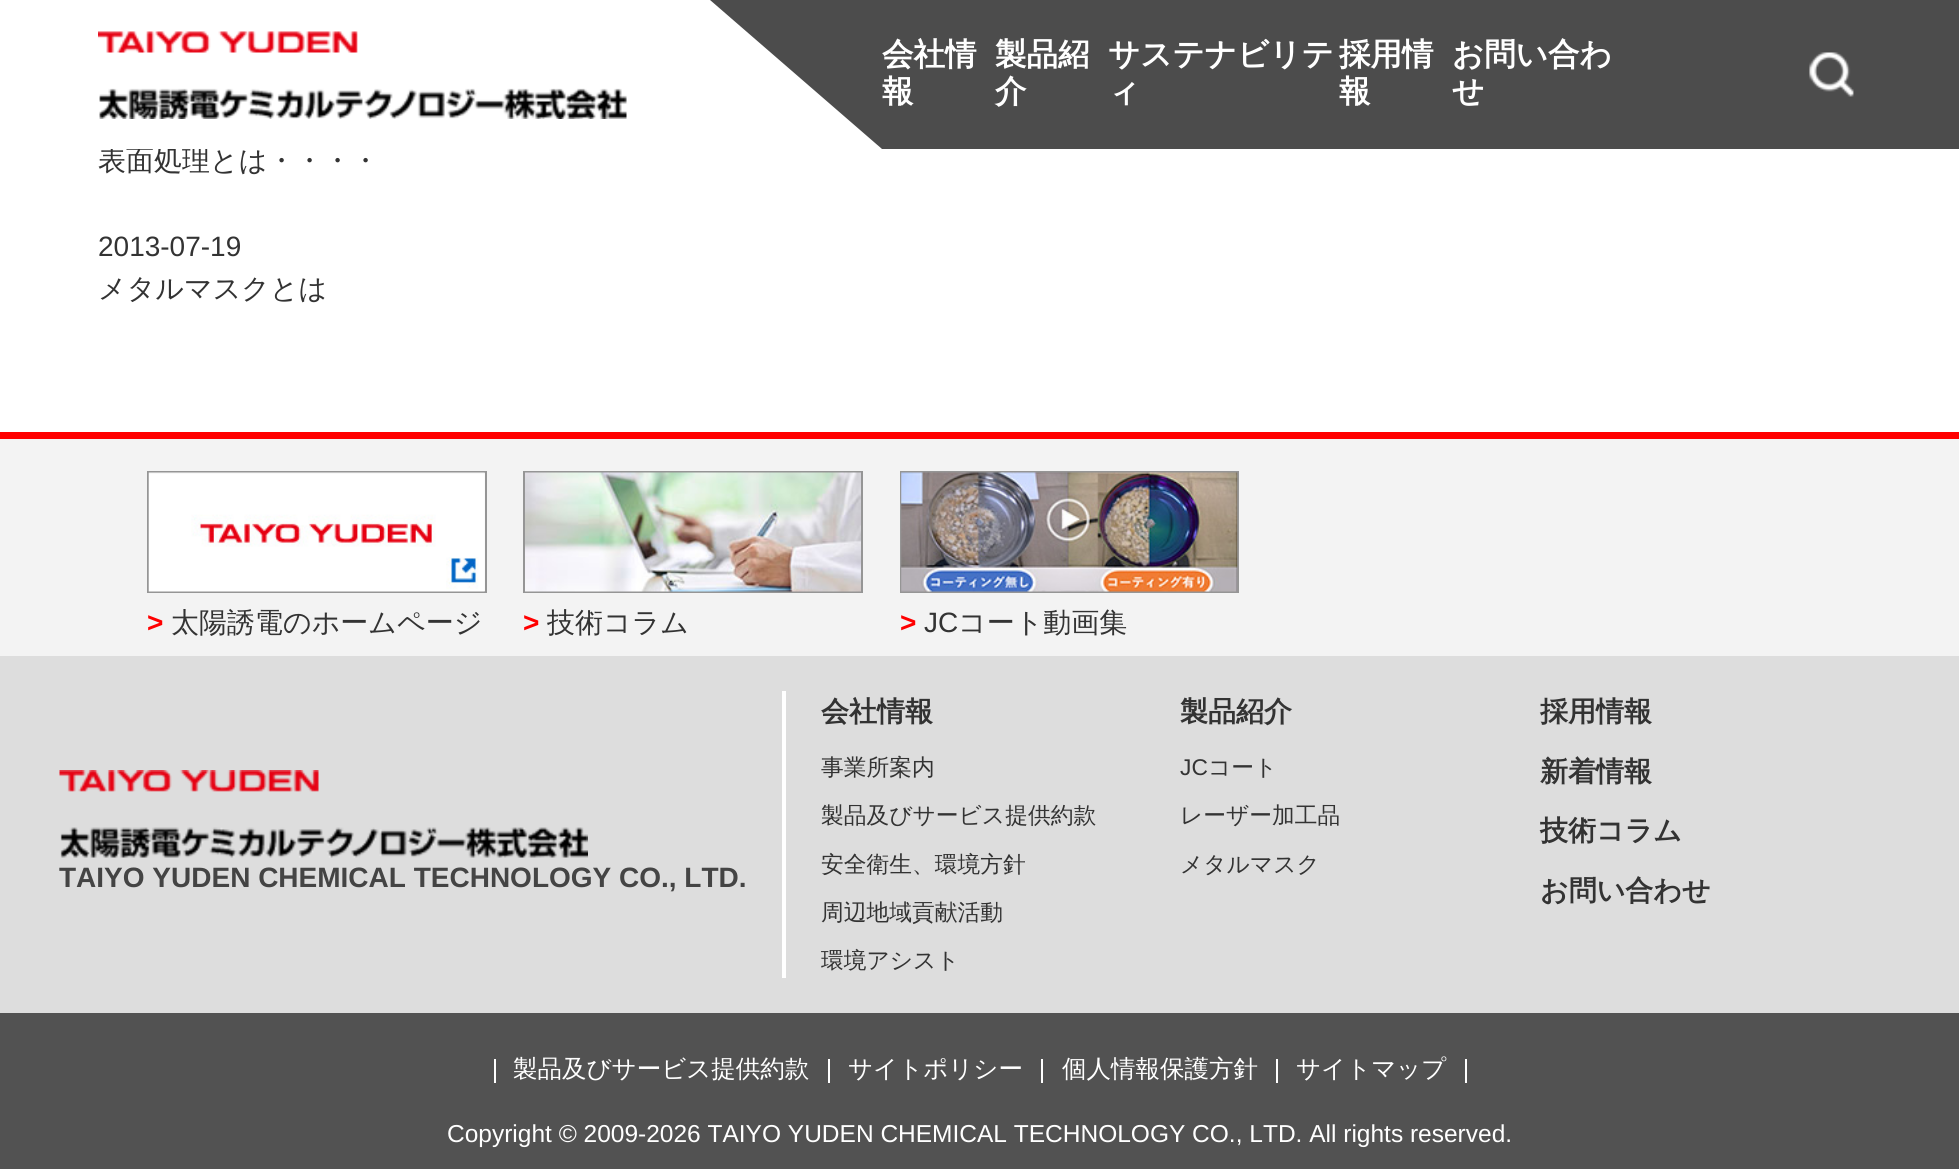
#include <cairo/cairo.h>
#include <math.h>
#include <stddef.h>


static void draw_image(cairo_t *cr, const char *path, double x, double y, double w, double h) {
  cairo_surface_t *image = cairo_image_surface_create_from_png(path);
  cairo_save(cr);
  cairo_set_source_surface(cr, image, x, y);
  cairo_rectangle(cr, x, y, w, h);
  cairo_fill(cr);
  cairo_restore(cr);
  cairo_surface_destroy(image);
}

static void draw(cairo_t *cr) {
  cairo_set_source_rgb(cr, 1, 1, 1);
  cairo_paint(cr);
  cairo_set_source_rgb(cr, 76 / 255.0, 76 / 255.0, 76 / 255.0);
  cairo_rectangle(cr, 882, 0, 1077, 149);
  cairo_fill(cr);
  draw_image(cr, "images/1.png", 98, 31, 529, 88);
  cairo_new_path(cr);
  cairo_move_to(cr, 710, 0);
  cairo_line_to(cr, 882, 0);
  cairo_line_to(cr, 882, 149);
  cairo_close_path(cr);
  cairo_fill(cr);
  draw_image(cr, "images/2.png", 1809, 52, 45, 45);
  cairo_set_source_rgb(cr, 1, 0, 0);
  cairo_rectangle(cr, 0, 432, 1959, 7);
  cairo_fill(cr);
  cairo_set_source_rgb(cr, 243 / 255.0, 243 / 255.0, 243 / 255.0);
  cairo_rectangle(cr, 0, 439, 1959, 217);
  cairo_fill(cr);
  cairo_rectangle(cr, 148, 472, 338, 120);
  cairo_set_source_rgb(cr, 149 / 255.0, 149 / 255.0, 149 / 255.0);
  cairo_stroke(cr);
  draw_image(cr, "images/3.png", 148, 472, 337, 120);
  cairo_rectangle(cr, 524, 472, 338, 120);
  cairo_stroke(cr);
  draw_image(cr, "images/4.png", 525, 472, 336, 120);
  cairo_rectangle(cr, 901, 472, 337, 120);
  cairo_stroke(cr);
  draw_image(cr, "images/5.png", 901, 472, 337, 120);
  cairo_set_source_rgb(cr, 221 / 255.0, 221 / 255.0, 221 / 255.0);
  cairo_rectangle(cr, 0, 656, 1959, 357);
  cairo_fill(cr);
  cairo_set_source_rgb(cr, 1, 1, 1);
  cairo_rectangle(cr, 782, 691, 4, 287);
  cairo_fill(cr);
  draw_image(cr, "images/6.png", 59, 770, 529, 88);
  cairo_set_source_rgb(cr, 82 / 255.0, 82 / 255.0, 82 / 255.0);
  cairo_rectangle(cr, 0, 1013, 1959, 156);
  cairo_fill(cr);
  cairo_set_source_rgb(cr, 1, 1, 1);
  cairo_rectangle(cr, 494, 1059, 2, 24);
  cairo_fill(cr);
  cairo_rectangle(cr, 828, 1059, 2, 24);
  cairo_fill(cr);
  cairo_rectangle(cr, 1041, 1059, 2, 24);
  cairo_fill(cr);
  cairo_rectangle(cr, 1276, 1059, 2, 24);
  cairo_fill(cr);
  cairo_rectangle(cr, 1465, 1059, 2, 24);
  cairo_fill(cr);
  cairo_select_font_face(cr, "WenQuanYi Zen Hei", CAIRO_FONT_SLANT_NORMAL, CAIRO_FONT_WEIGHT_BOLD);
  cairo_set_font_size(cr, 31.5);
  cairo_move_to(cr, 882, 65);
  cairo_show_text(cr, "会社情");
  cairo_move_to(cr, 882, 102);
  cairo_show_text(cr, "報");
  cairo_move_to(cr, 995, 65);
  cairo_show_text(cr, "製品紹");
  cairo_move_to(cr, 995, 102);
  cairo_show_text(cr, "介");
  cairo_move_to(cr, 1108, 65);
  cairo_show_text(cr, "サステナビリテ");
  cairo_move_to(cr, 1108, 102);
  cairo_show_text(cr, "ィ");
  cairo_move_to(cr, 1339, 65);
  cairo_show_text(cr, "採用情");
  cairo_move_to(cr, 1339, 102);
  cairo_show_text(cr, "報");
  cairo_move_to(cr, 1452, 65);
  cairo_show_text(cr, "お問い合わ");
  cairo_move_to(cr, 1452, 102);
  cairo_show_text(cr, "せ");
  cairo_select_font_face(cr, "WenQuanYi Zen Hei Medium", CAIRO_FONT_SLANT_NORMAL, CAIRO_FONT_WEIGHT_NORMAL);
  cairo_set_font_size(cr, 28);
  cairo_set_source_rgb(cr, 51 / 255.0, 51 / 255.0, 51 / 255.0);
  cairo_move_to(cr, 98, 170);
  cairo_show_text(cr, "表面処理とは・・・・");
  cairo_set_source_rgb(cr, 1, 1, 1);
  cairo_rectangle(cr, 110, 147, 98, 2);
  cairo_fill(cr);
  cairo_select_font_face(cr, "Liberation Sans", CAIRO_FONT_SLANT_NORMAL, CAIRO_FONT_WEIGHT_NORMAL);
  cairo_set_source_rgb(cr, 51 / 255.0, 51 / 255.0, 51 / 255.0);
  cairo_move_to(cr, 98, 256);
  cairo_show_text(cr, "2013-07-19");
  cairo_select_font_face(cr, "WenQuanYi Zen Hei Medium", CAIRO_FONT_SLANT_NORMAL, CAIRO_FONT_WEIGHT_NORMAL);
  cairo_move_to(cr, 98, 298);
  cairo_show_text(cr, "メタルマスクとは");
  cairo_select_font_face(cr, "Liberation Sans", CAIRO_FONT_SLANT_NORMAL, CAIRO_FONT_WEIGHT_BOLD);
  cairo_set_source_rgb(cr, 1, 0, 0);
  cairo_move_to(cr, 147, 632);
  cairo_show_text(cr, ">");
  cairo_select_font_face(cr, "WenQuanYi Zen Hei Medium", CAIRO_FONT_SLANT_NORMAL, CAIRO_FONT_WEIGHT_NORMAL);
  cairo_set_source_rgb(cr, 51 / 255.0, 51 / 255.0, 51 / 255.0);
  cairo_move_to(cr, 171, 632);
  cairo_show_text(cr, "太陽誘電のホームページ");
  cairo_select_font_face(cr, "Liberation Sans", CAIRO_FONT_SLANT_NORMAL, CAIRO_FONT_WEIGHT_BOLD);
  cairo_set_source_rgb(cr, 1, 0, 0);
  cairo_move_to(cr, 523, 632);
  cairo_show_text(cr, ">");
  cairo_select_font_face(cr, "WenQuanYi Zen Hei Medium", CAIRO_FONT_SLANT_NORMAL, CAIRO_FONT_WEIGHT_NORMAL);
  cairo_set_source_rgb(cr, 51 / 255.0, 51 / 255.0, 51 / 255.0);
  cairo_move_to(cr, 547, 632);
  cairo_show_text(cr, "技術コラム");
  cairo_select_font_face(cr, "Liberation Sans", CAIRO_FONT_SLANT_NORMAL, CAIRO_FONT_WEIGHT_BOLD);
  cairo_set_source_rgb(cr, 1, 0, 0);
  cairo_move_to(cr, 900, 632);
  cairo_show_text(cr, ">");
  cairo_select_font_face(cr, "Liberation Sans", CAIRO_FONT_SLANT_NORMAL, CAIRO_FONT_WEIGHT_NORMAL);
  cairo_set_source_rgb(cr, 51 / 255.0, 51 / 255.0, 51 / 255.0);
  cairo_move_to(cr, 924, 632);
  cairo_show_text(cr, "JC");
  cairo_select_font_face(cr, "WenQuanYi Zen Hei Medium", CAIRO_FONT_SLANT_NORMAL, CAIRO_FONT_WEIGHT_NORMAL);
  cairo_move_to(cr, 958, 632);
  cairo_show_text(cr, "コート動画集");
  cairo_select_font_face(cr, "Liberation Sans", CAIRO_FONT_SLANT_NORMAL, CAIRO_FONT_WEIGHT_BOLD);
  cairo_set_source_rgb(cr, 68 / 255.0, 68 / 255.0, 68 / 255.0);
  cairo_move_to(cr, 59, 887);
  cairo_show_text(cr, "TAIYO YUDEN CHEMICAL TECHNOLOGY CO., LTD.");
  cairo_select_font_face(cr, "WenQuanYi Zen Hei", CAIRO_FONT_SLANT_NORMAL, CAIRO_FONT_WEIGHT_BOLD);
  cairo_set_source_rgb(cr, 51 / 255.0, 51 / 255.0, 51 / 255.0);
  cairo_move_to(cr, 821, 721);
  cairo_show_text(cr, "会社情報");
  cairo_select_font_face(cr, "WenQuanYi Zen Hei Medium", CAIRO_FONT_SLANT_NORMAL, CAIRO_FONT_WEIGHT_NORMAL);
  cairo_set_font_size(cr, 22.75);
  cairo_move_to(cr, 821, 775);
  cairo_show_text(cr, "事業所案内");
  cairo_move_to(cr, 821, 823);
  cairo_show_text(cr, "製品及びサービス提供約款");
  cairo_move_to(cr, 821, 872);
  cairo_show_text(cr, "安全衛生、環境方針");
  cairo_move_to(cr, 821, 920);
  cairo_show_text(cr, "周辺地域貢献活動");
  cairo_move_to(cr, 821, 968);
  cairo_show_text(cr, "環境アシスト");
  cairo_select_font_face(cr, "WenQuanYi Zen Hei", CAIRO_FONT_SLANT_NORMAL, CAIRO_FONT_WEIGHT_BOLD);
  cairo_set_font_size(cr, 28);
  cairo_move_to(cr, 1180, 721);
  cairo_show_text(cr, "製品紹介");
  cairo_select_font_face(cr, "Liberation Sans", CAIRO_FONT_SLANT_NORMAL, CAIRO_FONT_WEIGHT_NORMAL);
  cairo_set_font_size(cr, 22.75);
  cairo_move_to(cr, 1180, 775);
  cairo_show_text(cr, "JC");
  cairo_select_font_face(cr, "WenQuanYi Zen Hei Medium", CAIRO_FONT_SLANT_NORMAL, CAIRO_FONT_WEIGHT_NORMAL);
  cairo_move_to(cr, 1208, 775);
  cairo_show_text(cr, "コート");
  cairo_move_to(cr, 1180, 823);
  cairo_show_text(cr, "レーザー加工品");
  cairo_move_to(cr, 1180, 872);
  cairo_show_text(cr, "メタルマスク");
  cairo_select_font_face(cr, "WenQuanYi Zen Hei", CAIRO_FONT_SLANT_NORMAL, CAIRO_FONT_WEIGHT_BOLD);
  cairo_set_font_size(cr, 28);
  cairo_move_to(cr, 1540, 721);
  cairo_show_text(cr, "採用情報");
  cairo_move_to(cr, 1540, 781);
  cairo_show_text(cr, "新着情報");
  cairo_move_to(cr, 1540, 840);
  cairo_show_text(cr, "技術コラム");
  cairo_move_to(cr, 1540, 900);
  cairo_show_text(cr, "お問い合わせ");
  cairo_select_font_face(cr, "WenQuanYi Zen Hei Medium", CAIRO_FONT_SLANT_NORMAL, CAIRO_FONT_WEIGHT_NORMAL);
  cairo_set_font_size(cr, 24.5);
  cairo_set_source_rgb(cr, 1, 1, 1);
  cairo_move_to(cr, 513, 1077);
  cairo_show_text(cr, "製品及びサービス提供約款");
  cairo_move_to(cr, 848, 1077);
  cairo_show_text(cr, "サイトポリシー");
  cairo_move_to(cr, 1062, 1077);
  cairo_show_text(cr, "個人情報保護方針");
  cairo_move_to(cr, 1296, 1077);
  cairo_show_text(cr, "サイトマップ");
  cairo_select_font_face(cr, "Liberation Sans", CAIRO_FONT_SLANT_NORMAL, CAIRO_FONT_WEIGHT_NORMAL);
  cairo_move_to(cr, 447, 1142);
  cairo_show_text(cr, "Copyright © 2009-2026 TAIYO YUDEN CHEMICAL TECHNOLOGY CO., LTD. All rights reserved.");
}

int main(void) {
  cairo_surface_t *surface = cairo_image_surface_create(CAIRO_FORMAT_RGB24, 1959, 1169);
  cairo_t *cr = cairo_create(surface);
  cairo_font_options_t *options = cairo_font_options_create();
  cairo_font_options_set_hint_metrics(options, CAIRO_HINT_METRICS_OFF);
  cairo_font_options_set_hint_style(options, CAIRO_HINT_STYLE_NONE);
  cairo_set_font_options(cr, options);
  cairo_set_miter_limit(cr, 4);
  draw(cr);
  cairo_surface_write_to_png(surface, "out.png");
  cairo_font_options_destroy(options);
  cairo_destroy(cr);
  cairo_surface_destroy(surface);
  return 0;
}
